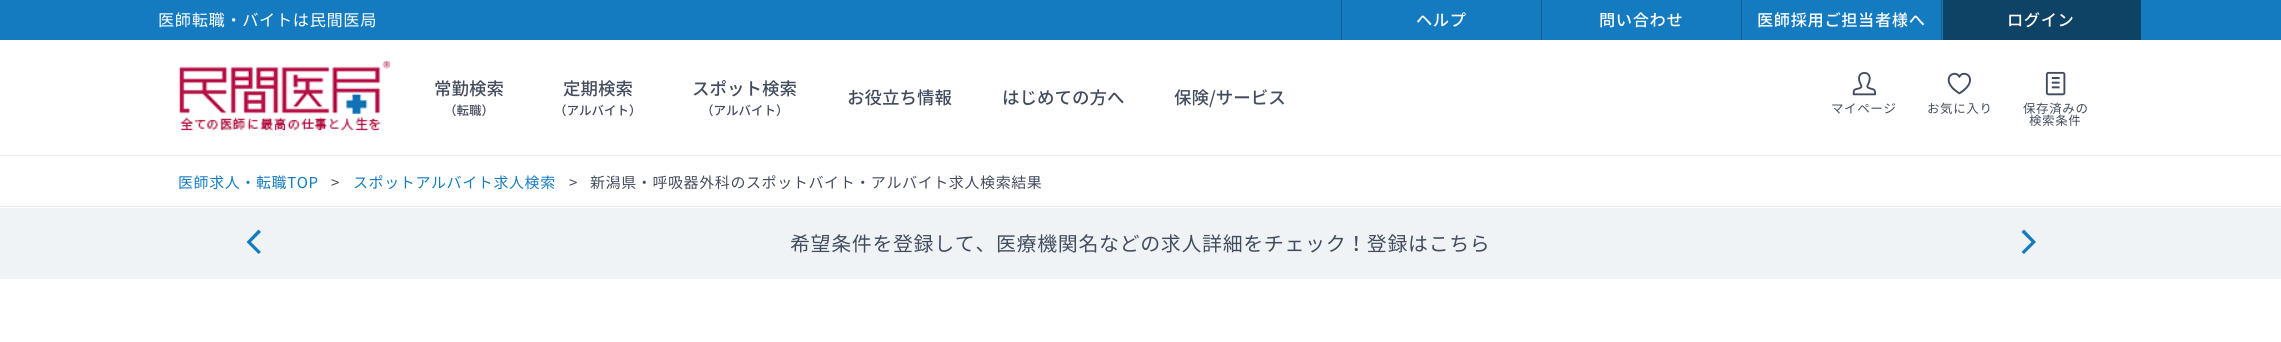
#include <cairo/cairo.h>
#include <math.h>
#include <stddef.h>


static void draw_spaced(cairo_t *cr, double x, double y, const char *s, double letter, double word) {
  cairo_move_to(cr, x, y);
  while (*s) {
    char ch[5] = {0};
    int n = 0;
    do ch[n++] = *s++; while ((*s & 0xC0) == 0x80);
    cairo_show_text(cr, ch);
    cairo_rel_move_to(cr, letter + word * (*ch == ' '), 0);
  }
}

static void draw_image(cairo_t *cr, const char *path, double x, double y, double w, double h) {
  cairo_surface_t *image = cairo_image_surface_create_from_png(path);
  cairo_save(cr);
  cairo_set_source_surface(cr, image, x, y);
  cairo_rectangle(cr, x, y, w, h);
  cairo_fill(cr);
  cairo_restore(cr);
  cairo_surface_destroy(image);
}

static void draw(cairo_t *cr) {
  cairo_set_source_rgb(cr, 1, 1, 1);
  cairo_paint(cr);
  cairo_set_source_rgb(cr, 20 / 255.0, 123 / 255.0, 193 / 255.0);
  cairo_rectangle(cr, 0, 0, 2281, 40);
  cairo_fill(cr);
  cairo_set_source_rgb(cr, 21 / 255.0, 91 / 255.0, 138 / 255.0);
  cairo_rectangle(cr, 1341, 0, 1, 40);
  cairo_fill(cr);
  cairo_rectangle(cr, 1541, 0, 1, 40);
  cairo_fill(cr);
  cairo_rectangle(cr, 1741, 0, 1, 40);
  cairo_fill(cr);
  cairo_rectangle(cr, 1941, 0, 1, 40);
  cairo_fill(cr);
  cairo_set_source_rgb(cr, 15 / 255.0, 67 / 255.0, 102 / 255.0);
  cairo_rectangle(cr, 1943, 0, 198, 40);
  cairo_fill(cr);
  draw_image(cr, "images/1.png", 178, 61, 213, 70);
  draw_image(cr, "images/2.png", 1852, 72, 24, 24);
  draw_image(cr, "images/3.png", 1947, 72, 24, 23);
  draw_image(cr, "images/4.png", 2045, 71, 21, 25);
  cairo_set_source_rgb(cr, 231 / 255.0, 233 / 255.0, 238 / 255.0);
  cairo_rectangle(cr, 0, 155, 2281, 1);
  cairo_fill(cr);
  cairo_rectangle(cr, 0, 206, 2281, 1);
  cairo_fill(cr);
  cairo_set_source_rgb(cr, 240 / 255.0, 243 / 255.0, 246 / 255.0);
  cairo_rectangle(cr, 0, 208, 2281, 71);
  cairo_fill(cr);
  cairo_set_source_rgb(cr, 20 / 255.0, 123 / 255.0, 193 / 255.0);
  cairo_new_path(cr);
  cairo_move_to(cr, 261, 232);
  cairo_line_to(cr, 258.5, 229.5);
  cairo_line_to(cr, 246.5, 242);
  cairo_line_to(cr, 258.5, 254);
  cairo_line_to(cr, 261, 252);
  cairo_line_to(cr, 251, 242);
  cairo_close_path(cr);
  cairo_fill(cr);
  cairo_new_path(cr);
  cairo_move_to(cr, 2024, 229.5);
  cairo_line_to(cr, 2021.5, 232);
  cairo_line_to(cr, 2031.5, 242);
  cairo_line_to(cr, 2021.5, 252);
  cairo_line_to(cr, 2024, 254);
  cairo_line_to(cr, 2036, 242);
  cairo_close_path(cr);
  cairo_fill(cr);
  cairo_select_font_face(cr, "Noto Sans JP", CAIRO_FONT_SLANT_NORMAL, CAIRO_FONT_WEIGHT_NORMAL);
  cairo_set_font_size(cr, 16.25);
  cairo_set_source_rgb(cr, 1, 1, 1);
  draw_spaced(cr, 158, 26, "医師転職・バイトは民間医局", 0.6, 0);
  cairo_select_font_face(cr, "Noto Sans JP Medium", CAIRO_FONT_SLANT_NORMAL, CAIRO_FONT_WEIGHT_NORMAL);
  draw_spaced(cr, 1416, 26, "ヘルプ", 0.6, 0);
  draw_spaced(cr, 1599, 26, "問い合わせ", 0.6, 0);
  draw_spaced(cr, 1757, 26, "医師採用ご担当者様へ", 0.6, 0);
  draw_spaced(cr, 2007, 26, "ログイン", 0.6, 0);
  cairo_set_font_size(cr, 17.5);
  cairo_set_source_rgb(cr, 67 / 255.0, 76 / 255.0, 94 / 255.0);
  cairo_move_to(cr, 434, 95);
  cairo_show_text(cr, "常勤検索");
  cairo_set_font_size(cr, 12.5);
  cairo_move_to(cr, 444, 115);
  cairo_show_text(cr, "（転職）");
  cairo_set_font_size(cr, 17.5);
  cairo_move_to(cr, 563, 95);
  cairo_show_text(cr, "定期検索");
  cairo_set_font_size(cr, 12.5);
  cairo_move_to(cr, 554, 115);
  cairo_show_text(cr, "（アルバイト）");
  cairo_set_font_size(cr, 17.5);
  cairo_move_to(cr, 692, 95);
  cairo_show_text(cr, "スポット検索");
  cairo_set_font_size(cr, 12.5);
  cairo_move_to(cr, 701, 115);
  cairo_show_text(cr, "（アルバイト）");
  cairo_set_font_size(cr, 17.5);
  cairo_move_to(cr, 847, 104);
  cairo_show_text(cr, "お役立ち情報");
  cairo_move_to(cr, 1002, 104);
  cairo_show_text(cr, "はじめての方へ");
  cairo_move_to(cr, 1174, 104);
  cairo_show_text(cr, "保険/サービス");
  cairo_select_font_face(cr, "Noto Sans JP", CAIRO_FONT_SLANT_NORMAL, CAIRO_FONT_WEIGHT_NORMAL);
  cairo_set_font_size(cr, 12.5);
  draw_spaced(cr, 1831, 113, "マイページ", 0.6, 0);
  draw_spaced(cr, 1927, 113, "お気に入り", 0.6, 0);
  draw_spaced(cr, 2023, 113, "保存済みの", 0.6, 0);
  draw_spaced(cr, 2029, 125, "検索条件", 0.6, 0);
  cairo_set_font_size(cr, 15);
  cairo_set_source_rgb(cr, 20 / 255.0, 123 / 255.0, 193 / 255.0);
  draw_spaced(cr, 178, 188, "医師求人・転職TOP", 0.6, 0);
  cairo_set_source_rgb(cr, 67 / 255.0, 76 / 255.0, 94 / 255.0);
  draw_spaced(cr, 331, 188, ">", 0.6, 0);
  cairo_set_source_rgb(cr, 20 / 255.0, 123 / 255.0, 193 / 255.0);
  draw_spaced(cr, 353, 188, "スポットアルバイト求人検索", 0.6, 0);
  cairo_set_source_rgb(cr, 67 / 255.0, 76 / 255.0, 94 / 255.0);
  draw_spaced(cr, 569, 188, ">", 0.6, 0);
  draw_spaced(cr, 590, 188, "新潟県・呼吸器外科のスポットバイト・アルバイト求人検索結果", 0.6, 0);
  cairo_set_font_size(cr, 20);
  draw_spaced(cr, 790, 251, "希望条件を登録して、医療機関名などの求人詳細をチェック！登録はこちら", 0.6, 0);
}

int main(void) {
  cairo_surface_t *surface = cairo_image_surface_create(CAIRO_FORMAT_RGB24, 2281, 342);
  cairo_t *cr = cairo_create(surface);
  cairo_font_options_t *options = cairo_font_options_create();
  cairo_font_options_set_hint_metrics(options, CAIRO_HINT_METRICS_OFF);
  cairo_font_options_set_hint_style(options, CAIRO_HINT_STYLE_NONE);
  cairo_set_font_options(cr, options);
  cairo_set_miter_limit(cr, 4);
  draw(cr);
  cairo_surface_write_to_png(surface, "out.png");
  cairo_font_options_destroy(options);
  cairo_destroy(cr);
  cairo_surface_destroy(surface);
  return 0;
}
